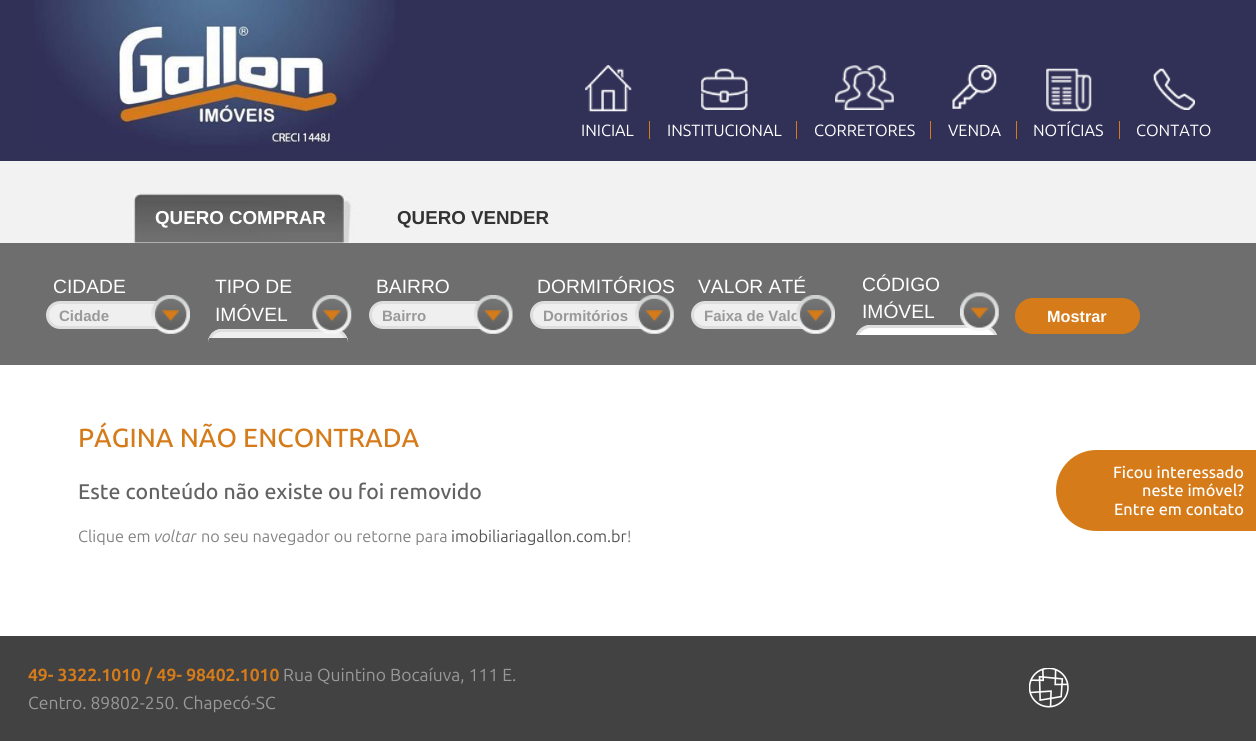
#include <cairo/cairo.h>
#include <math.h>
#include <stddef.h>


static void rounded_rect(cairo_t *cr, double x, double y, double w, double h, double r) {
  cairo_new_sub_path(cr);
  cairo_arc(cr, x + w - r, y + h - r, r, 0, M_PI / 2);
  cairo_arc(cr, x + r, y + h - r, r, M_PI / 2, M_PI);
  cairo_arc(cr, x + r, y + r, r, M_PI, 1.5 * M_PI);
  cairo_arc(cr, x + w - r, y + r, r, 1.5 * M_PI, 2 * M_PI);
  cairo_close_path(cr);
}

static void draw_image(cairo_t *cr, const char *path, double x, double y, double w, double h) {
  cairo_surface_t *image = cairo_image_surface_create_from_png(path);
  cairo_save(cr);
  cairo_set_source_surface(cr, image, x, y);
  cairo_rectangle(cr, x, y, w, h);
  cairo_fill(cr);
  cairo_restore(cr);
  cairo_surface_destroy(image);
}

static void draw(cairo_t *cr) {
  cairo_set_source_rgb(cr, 1, 1, 1);
  cairo_paint(cr);
  cairo_set_source_rgb(cr, 49 / 255.0, 49 / 255.0, 87 / 255.0);
  cairo_rectangle(cr, 0, 0, 1256, 161);
  cairo_fill(cr);
  draw_image(cr, "images/1.png", 34, 0, 361, 145);
  draw_image(cr, "images/2.png", 585, 65, 47, 47);
  cairo_set_source_rgb(cr, 213 / 255.0, 123 / 255.0, 26 / 255.0);
  cairo_rectangle(cr, 649, 121, 1, 18);
  cairo_fill(cr);
  draw_image(cr, "images/3.png", 701, 68, 47, 42);
  cairo_rectangle(cr, 796, 121, 1, 18);
  cairo_fill(cr);
  draw_image(cr, "images/4.png", 835, 65, 59, 45);
  cairo_rectangle(cr, 930, 121, 1, 18);
  cairo_fill(cr);
  draw_image(cr, "images/5.png", 952, 65, 45, 44);
  cairo_rectangle(cr, 1016, 121, 1, 18);
  cairo_fill(cr);
  draw_image(cr, "images/6.png", 1046, 68, 46, 44);
  cairo_rectangle(cr, 1119, 121, 1, 18);
  cairo_fill(cr);
  draw_image(cr, "images/7.png", 1153, 68, 42, 42);
  cairo_set_source_rgb(cr, 110 / 255.0, 110 / 255.0, 110 / 255.0);
  cairo_rectangle(cr, 0, 243, 1256, 122);
  cairo_fill(cr);
  cairo_set_source_rgb(cr, 242 / 255.0, 242 / 255.0, 242 / 255.0);
  cairo_rectangle(cr, 0, 161, 1256, 82);
  cairo_fill(cr);
  draw_image(cr, "images/8.png", 130, 193, 226, 50);
  cairo_set_source_rgb(cr, 239 / 255.0, 239 / 255.0, 239 / 255.0);
  rounded_rect(cr, 47.5, 302.5, 137, 25, 12.5);
  cairo_fill_preserve(cr);
  cairo_set_source_rgb(cr, 222 / 255.0, 222 / 255.0, 222 / 255.0);
  cairo_set_line_width(cr, 3);
  cairo_stroke(cr);
  draw_image(cr, "images/9.png", 151, 295, 39, 39);
  cairo_set_source_rgb(cr, 239 / 255.0, 239 / 255.0, 239 / 255.0);
  cairo_new_path(cr);
  cairo_move_to(cr, 221.5, 329);
  cairo_line_to(cr, 334.5, 329);
  cairo_curve_to(cr, 342, 329, 348, 335, 348, 342.5);
  cairo_line_to(cr, 348, 338);
  cairo_line_to(cr, 208, 338);
  cairo_line_to(cr, 208, 342.5);
  cairo_curve_to(cr, 208, 335, 214, 329, 221.5, 329);
  cairo_close_path(cr);
  cairo_fill(cr);
  cairo_set_source_rgb(cr, 222 / 255.0, 222 / 255.0, 222 / 255.0);
  cairo_new_path(cr);
  cairo_move_to(cr, 222, 329);
  cairo_curve_to(cr, 216, 329, 211, 333, 209, 338);
  cairo_line_to(cr, 212, 338);
  cairo_curve_to(cr, 214, 334, 217, 332, 222, 332);
  cairo_line_to(cr, 334, 332);
  cairo_curve_to(cr, 339, 332, 342, 334, 344, 338);
  cairo_line_to(cr, 347, 338);
  cairo_curve_to(cr, 345, 333, 340, 329, 334, 329);
  cairo_close_path(cr);
  cairo_fill(cr);
  draw_image(cr, "images/10.png", 312, 295, 40, 39);
  cairo_set_source_rgb(cr, 239 / 255.0, 239 / 255.0, 239 / 255.0);
  rounded_rect(cr, 370.5, 302.5, 137, 25, 12.5);
  cairo_fill_preserve(cr);
  cairo_set_source_rgb(cr, 222 / 255.0, 222 / 255.0, 222 / 255.0);
  cairo_stroke(cr);
  draw_image(cr, "images/11.png", 474, 295, 39, 39);
  cairo_set_source_rgb(cr, 239 / 255.0, 239 / 255.0, 239 / 255.0);
  rounded_rect(cr, 531.5, 302.5, 137, 25, 12.5);
  cairo_fill_preserve(cr);
  cairo_set_source_rgb(cr, 222 / 255.0, 222 / 255.0, 222 / 255.0);
  cairo_stroke(cr);
  draw_image(cr, "images/12.png", 635, 295, 39, 39);
  cairo_set_source_rgb(cr, 239 / 255.0, 239 / 255.0, 239 / 255.0);
  rounded_rect(cr, 692.5, 302.5, 137, 25, 12.5);
  cairo_fill_preserve(cr);
  cairo_set_source_rgb(cr, 222 / 255.0, 222 / 255.0, 222 / 255.0);
  cairo_stroke(cr);
  cairo_save(cr);
  cairo_new_path(cr);
  cairo_move_to(cr, 858, 264);
  cairo_line_to(cr, 1014, 264);
  cairo_line_to(cr, 1014, 335);
  cairo_line_to(cr, 858, 335);
  cairo_curve_to(cr, 855, 335, 853, 333, 853, 330);
  cairo_line_to(cr, 853, 269);
  cairo_curve_to(cr, 853, 266, 855, 264, 858, 264);
  cairo_close_path(cr);
  cairo_clip(cr);
  cairo_set_source_rgb(cr, 1, 1, 1);
  cairo_new_path(cr);
  cairo_move_to(cr, 870.5, 325);
  cairo_line_to(cr, 982.5, 325);
  cairo_curve_to(cr, 991, 325, 998, 332, 998, 340.5);
  cairo_line_to(cr, 998, 335);
  cairo_line_to(cr, 855, 335);
  cairo_line_to(cr, 855, 340.5);
  cairo_curve_to(cr, 855, 332, 862, 325, 870.5, 325);
  cairo_close_path(cr);
  cairo_fill(cr);
  cairo_restore(cr);
  cairo_new_path(cr);
  cairo_move_to(cr, 870, 325);
  cairo_curve_to(cr, 864, 325, 858, 329, 856, 335);
  cairo_line_to(cr, 859, 335);
  cairo_curve_to(cr, 861, 331, 866, 328, 870, 328);
  cairo_line_to(cr, 982, 328);
  cairo_curve_to(cr, 987, 328, 992, 331, 994, 335);
  cairo_line_to(cr, 997, 335);
  cairo_curve_to(cr, 995, 329, 989, 325, 982, 325);
  cairo_close_path(cr);
  cairo_fill(cr);
  draw_image(cr, "images/14.png", 960, 292, 39, 39);
  cairo_set_source_rgb(cr, 213 / 255.0, 123 / 255.0, 25 / 255.0);
  rounded_rect(cr, 1015, 298, 125, 36, 18);
  cairo_fill(cr);
  cairo_set_source_rgb(cr, 213 / 255.0, 123 / 255.0, 26 / 255.0);
  cairo_new_path(cr);
  cairo_move_to(cr, 1096.5, 450);
  cairo_line_to(cr, 1256, 450);
  cairo_line_to(cr, 1256, 531);
  cairo_line_to(cr, 1096.5, 531);
  cairo_curve_to(cr, 1074, 531, 1056, 513, 1056, 490.5);
  cairo_curve_to(cr, 1056, 468, 1074, 450, 1096.5, 450);
  cairo_close_path(cr);
  cairo_fill(cr);
  cairo_set_source_rgb(cr, 66 / 255.0, 66 / 255.0, 66 / 255.0);
  cairo_rectangle(cr, 0, 636, 1256, 105);
  cairo_fill(cr);
  draw_image(cr, "images/15.png", 1029, 668, 40, 40);
  cairo_select_font_face(cr, "Ubuntu", CAIRO_FONT_SLANT_NORMAL, CAIRO_FONT_WEIGHT_NORMAL);
  cairo_set_font_size(cr, 16.25);
  cairo_set_source_rgb(cr, 1, 1, 1);
  cairo_move_to(cr, 581, 136);
  cairo_show_text(cr, "INICIAL");
  cairo_move_to(cr, 667, 136);
  cairo_show_text(cr, "INSTITUCIONAL");
  cairo_move_to(cr, 814, 136);
  cairo_show_text(cr, "CORRETORES");
  cairo_move_to(cr, 948, 136);
  cairo_show_text(cr, "VENDA");
  cairo_move_to(cr, 1033, 136);
  cairo_show_text(cr, "NOTÍCIAS");
  cairo_move_to(cr, 1136, 136);
  cairo_show_text(cr, "CONTATO");
  cairo_select_font_face(cr, "Liberation Sans", CAIRO_FONT_SLANT_NORMAL, CAIRO_FONT_WEIGHT_BOLD);
  cairo_set_font_size(cr, 18.75);
  cairo_move_to(cr, 155, 224);
  cairo_show_text(cr, "QUERO COMPRAR");
  cairo_set_source_rgb(cr, 51 / 255.0, 51 / 255.0, 51 / 255.0);
  cairo_move_to(cr, 397, 224);
  cairo_show_text(cr, "QUERO VENDER");
  cairo_select_font_face(cr, "Liberation Sans", CAIRO_FONT_SLANT_NORMAL, CAIRO_FONT_WEIGHT_NORMAL);
  cairo_set_font_size(cr, 19.25);
  cairo_set_source_rgb(cr, 1, 1, 1);
  cairo_move_to(cr, 53, 293);
  cairo_show_text(cr, "CIDADE");
  cairo_select_font_face(cr, "Liberation Sans", CAIRO_FONT_SLANT_NORMAL, CAIRO_FONT_WEIGHT_BOLD);
  cairo_set_font_size(cr, 15);
  cairo_set_source_rgb(cr, 153 / 255.0, 153 / 255.0, 153 / 255.0);
  cairo_move_to(cr, 59, 321);
  cairo_show_text(cr, "Cidade");
  cairo_select_font_face(cr, "Liberation Sans", CAIRO_FONT_SLANT_NORMAL, CAIRO_FONT_WEIGHT_NORMAL);
  cairo_set_font_size(cr, 19.25);
  cairo_set_source_rgb(cr, 1, 1, 1);
  cairo_move_to(cr, 215, 293);
  cairo_show_text(cr, "TIPO DE");
  cairo_move_to(cr, 215, 321);
  cairo_show_text(cr, "IMÓVEL");
  cairo_move_to(cr, 376, 293);
  cairo_show_text(cr, "BAIRRO");
  cairo_save(cr);
  cairo_rectangle(cr, 383, 305, 97, 20);
  cairo_clip(cr);
  cairo_select_font_face(cr, "Liberation Sans", CAIRO_FONT_SLANT_NORMAL, CAIRO_FONT_WEIGHT_BOLD);
  cairo_set_font_size(cr, 15);
  cairo_set_source_rgb(cr, 153 / 255.0, 153 / 255.0, 153 / 255.0);
  cairo_move_to(cr, 382, 321);
  cairo_show_text(cr, "Bairro");
  cairo_restore(cr);
  cairo_move_to(cr, 537, 293);
  cairo_show_text(cr, "DORMITÓRIOS");
  cairo_select_font_face(cr, "Liberation Sans", CAIRO_FONT_SLANT_NORMAL, CAIRO_FONT_WEIGHT_BOLD);
  cairo_set_font_size(cr, 15);
  cairo_set_source_rgb(cr, 153 / 255.0, 153 / 255.0, 153 / 255.0);
  cairo_move_to(cr, 543, 321);
  cairo_show_text(cr, "Dormitórios");
  cairo_select_font_face(cr, "Liberation Sans", CAIRO_FONT_SLANT_NORMAL, CAIRO_FONT_WEIGHT_NORMAL);
  cairo_set_font_size(cr, 19.25);
  cairo_set_source_rgb(cr, 1, 1, 1);
  cairo_move_to(cr, 698, 293);
  cairo_show_text(cr, "VALOR ATÉ");
  cairo_select_font_face(cr, "Liberation Sans", CAIRO_FONT_SLANT_NORMAL, CAIRO_FONT_WEIGHT_BOLD);
  cairo_set_font_size(cr, 15);
  cairo_set_source_rgb(cr, 153 / 255.0, 153 / 255.0, 153 / 255.0);
  cairo_move_to(cr, 704, 321);
  cairo_show_text(cr, "Faixa de Valo");
  draw_image(cr, "images/13.png", 796, 295, 39, 39);
  cairo_select_font_face(cr, "Liberation Sans", CAIRO_FONT_SLANT_NORMAL, CAIRO_FONT_WEIGHT_NORMAL);
  cairo_set_font_size(cr, 19.25);
  cairo_set_source_rgb(cr, 1, 1, 1);
  cairo_move_to(cr, 862, 291);
  cairo_show_text(cr, "CÓDIGO");
  cairo_move_to(cr, 862, 318);
  cairo_show_text(cr, "IMÓVEL");
  cairo_select_font_face(cr, "Liberation Sans", CAIRO_FONT_SLANT_NORMAL, CAIRO_FONT_WEIGHT_BOLD);
  cairo_set_font_size(cr, 16.25);
  cairo_move_to(cr, 1047, 322);
  cairo_show_text(cr, "Mostrar");
  cairo_select_font_face(cr, "Ubuntu Medium", CAIRO_FONT_SLANT_NORMAL, CAIRO_FONT_WEIGHT_NORMAL);
  cairo_set_font_size(cr, 26.25);
  cairo_set_source_rgb(cr, 213 / 255.0, 123 / 255.0, 26 / 255.0);
  cairo_move_to(cr, 78, 447);
  cairo_show_text(cr, "PÁGINA NÃO ENCONTRADA");
  cairo_set_font_size(cr, 21.25);
  cairo_set_source_rgb(cr, 98 / 255.0, 98 / 255.0, 98 / 255.0);
  cairo_move_to(cr, 78, 499);
  cairo_show_text(cr, "Este conteúdo não existe ou foi removido");
  cairo_select_font_face(cr, "Ubuntu", CAIRO_FONT_SLANT_NORMAL, CAIRO_FONT_WEIGHT_NORMAL);
  cairo_set_font_size(cr, 16.25);
  cairo_set_source_rgb(cr, 131 / 255.0, 131 / 255.0, 131 / 255.0);
  cairo_move_to(cr, 78, 542);
  cairo_show_text(cr, "Clique em");
  cairo_select_font_face(cr, "Ubuntu", CAIRO_FONT_SLANT_ITALIC, CAIRO_FONT_WEIGHT_NORMAL);
  cairo_move_to(cr, 154, 542);
  cairo_show_text(cr, "voltar");
  cairo_select_font_face(cr, "Ubuntu", CAIRO_FONT_SLANT_NORMAL, CAIRO_FONT_WEIGHT_NORMAL);
  cairo_move_to(cr, 201, 542);
  cairo_show_text(cr, "no seu navegador ou retorne para");
  cairo_set_source_rgb(cr, 85 / 255.0, 85 / 255.0, 85 / 255.0);
  cairo_move_to(cr, 451, 542);
  cairo_show_text(cr, "imobiliariagallon.com.br");
  cairo_set_source_rgb(cr, 131 / 255.0, 131 / 255.0, 131 / 255.0);
  cairo_move_to(cr, 627, 542);
  cairo_show_text(cr, "!");
  cairo_select_font_face(cr, "Ubuntu Medium", CAIRO_FONT_SLANT_NORMAL, CAIRO_FONT_WEIGHT_NORMAL);
  cairo_set_source_rgb(cr, 1, 1, 1);
  cairo_move_to(cr, 1113, 478);
  cairo_show_text(cr, "Ficou interessado");
  cairo_move_to(cr, 1142, 496);
  cairo_show_text(cr, "neste imóvel?");
  cairo_move_to(cr, 1114, 515);
  cairo_show_text(cr, "Entre em contato");
  cairo_select_font_face(cr, "Ubuntu", CAIRO_FONT_SLANT_NORMAL, CAIRO_FONT_WEIGHT_BOLD);
  cairo_set_font_size(cr, 17.5);
  cairo_set_source_rgb(cr, 213 / 255.0, 123 / 255.0, 26 / 255.0);
  cairo_move_to(cr, 28, 681);
  cairo_show_text(cr, "49- 3322.1010 / 49- 98402.1010");
  cairo_select_font_face(cr, "Ubuntu", CAIRO_FONT_SLANT_NORMAL, CAIRO_FONT_WEIGHT_NORMAL);
  cairo_set_source_rgb(cr, 153 / 255.0, 153 / 255.0, 153 / 255.0);
  cairo_move_to(cr, 283, 681);
  cairo_show_text(cr, "Rua Quintino Bocaíuva, 111 E.");
  cairo_move_to(cr, 28, 709);
  cairo_show_text(cr, "Centro. 89802-250. Chapecó-SC");
}

int main(void) {
  cairo_surface_t *surface = cairo_image_surface_create(CAIRO_FORMAT_RGB24, 1256, 741);
  cairo_t *cr = cairo_create(surface);
  cairo_font_options_t *options = cairo_font_options_create();
  cairo_font_options_set_hint_metrics(options, CAIRO_HINT_METRICS_OFF);
  cairo_font_options_set_hint_style(options, CAIRO_HINT_STYLE_NONE);
  cairo_set_font_options(cr, options);
  cairo_set_miter_limit(cr, 4);
  draw(cr);
  cairo_surface_write_to_png(surface, "out.png");
  cairo_font_options_destroy(options);
  cairo_destroy(cr);
  cairo_surface_destroy(surface);
  return 0;
}
